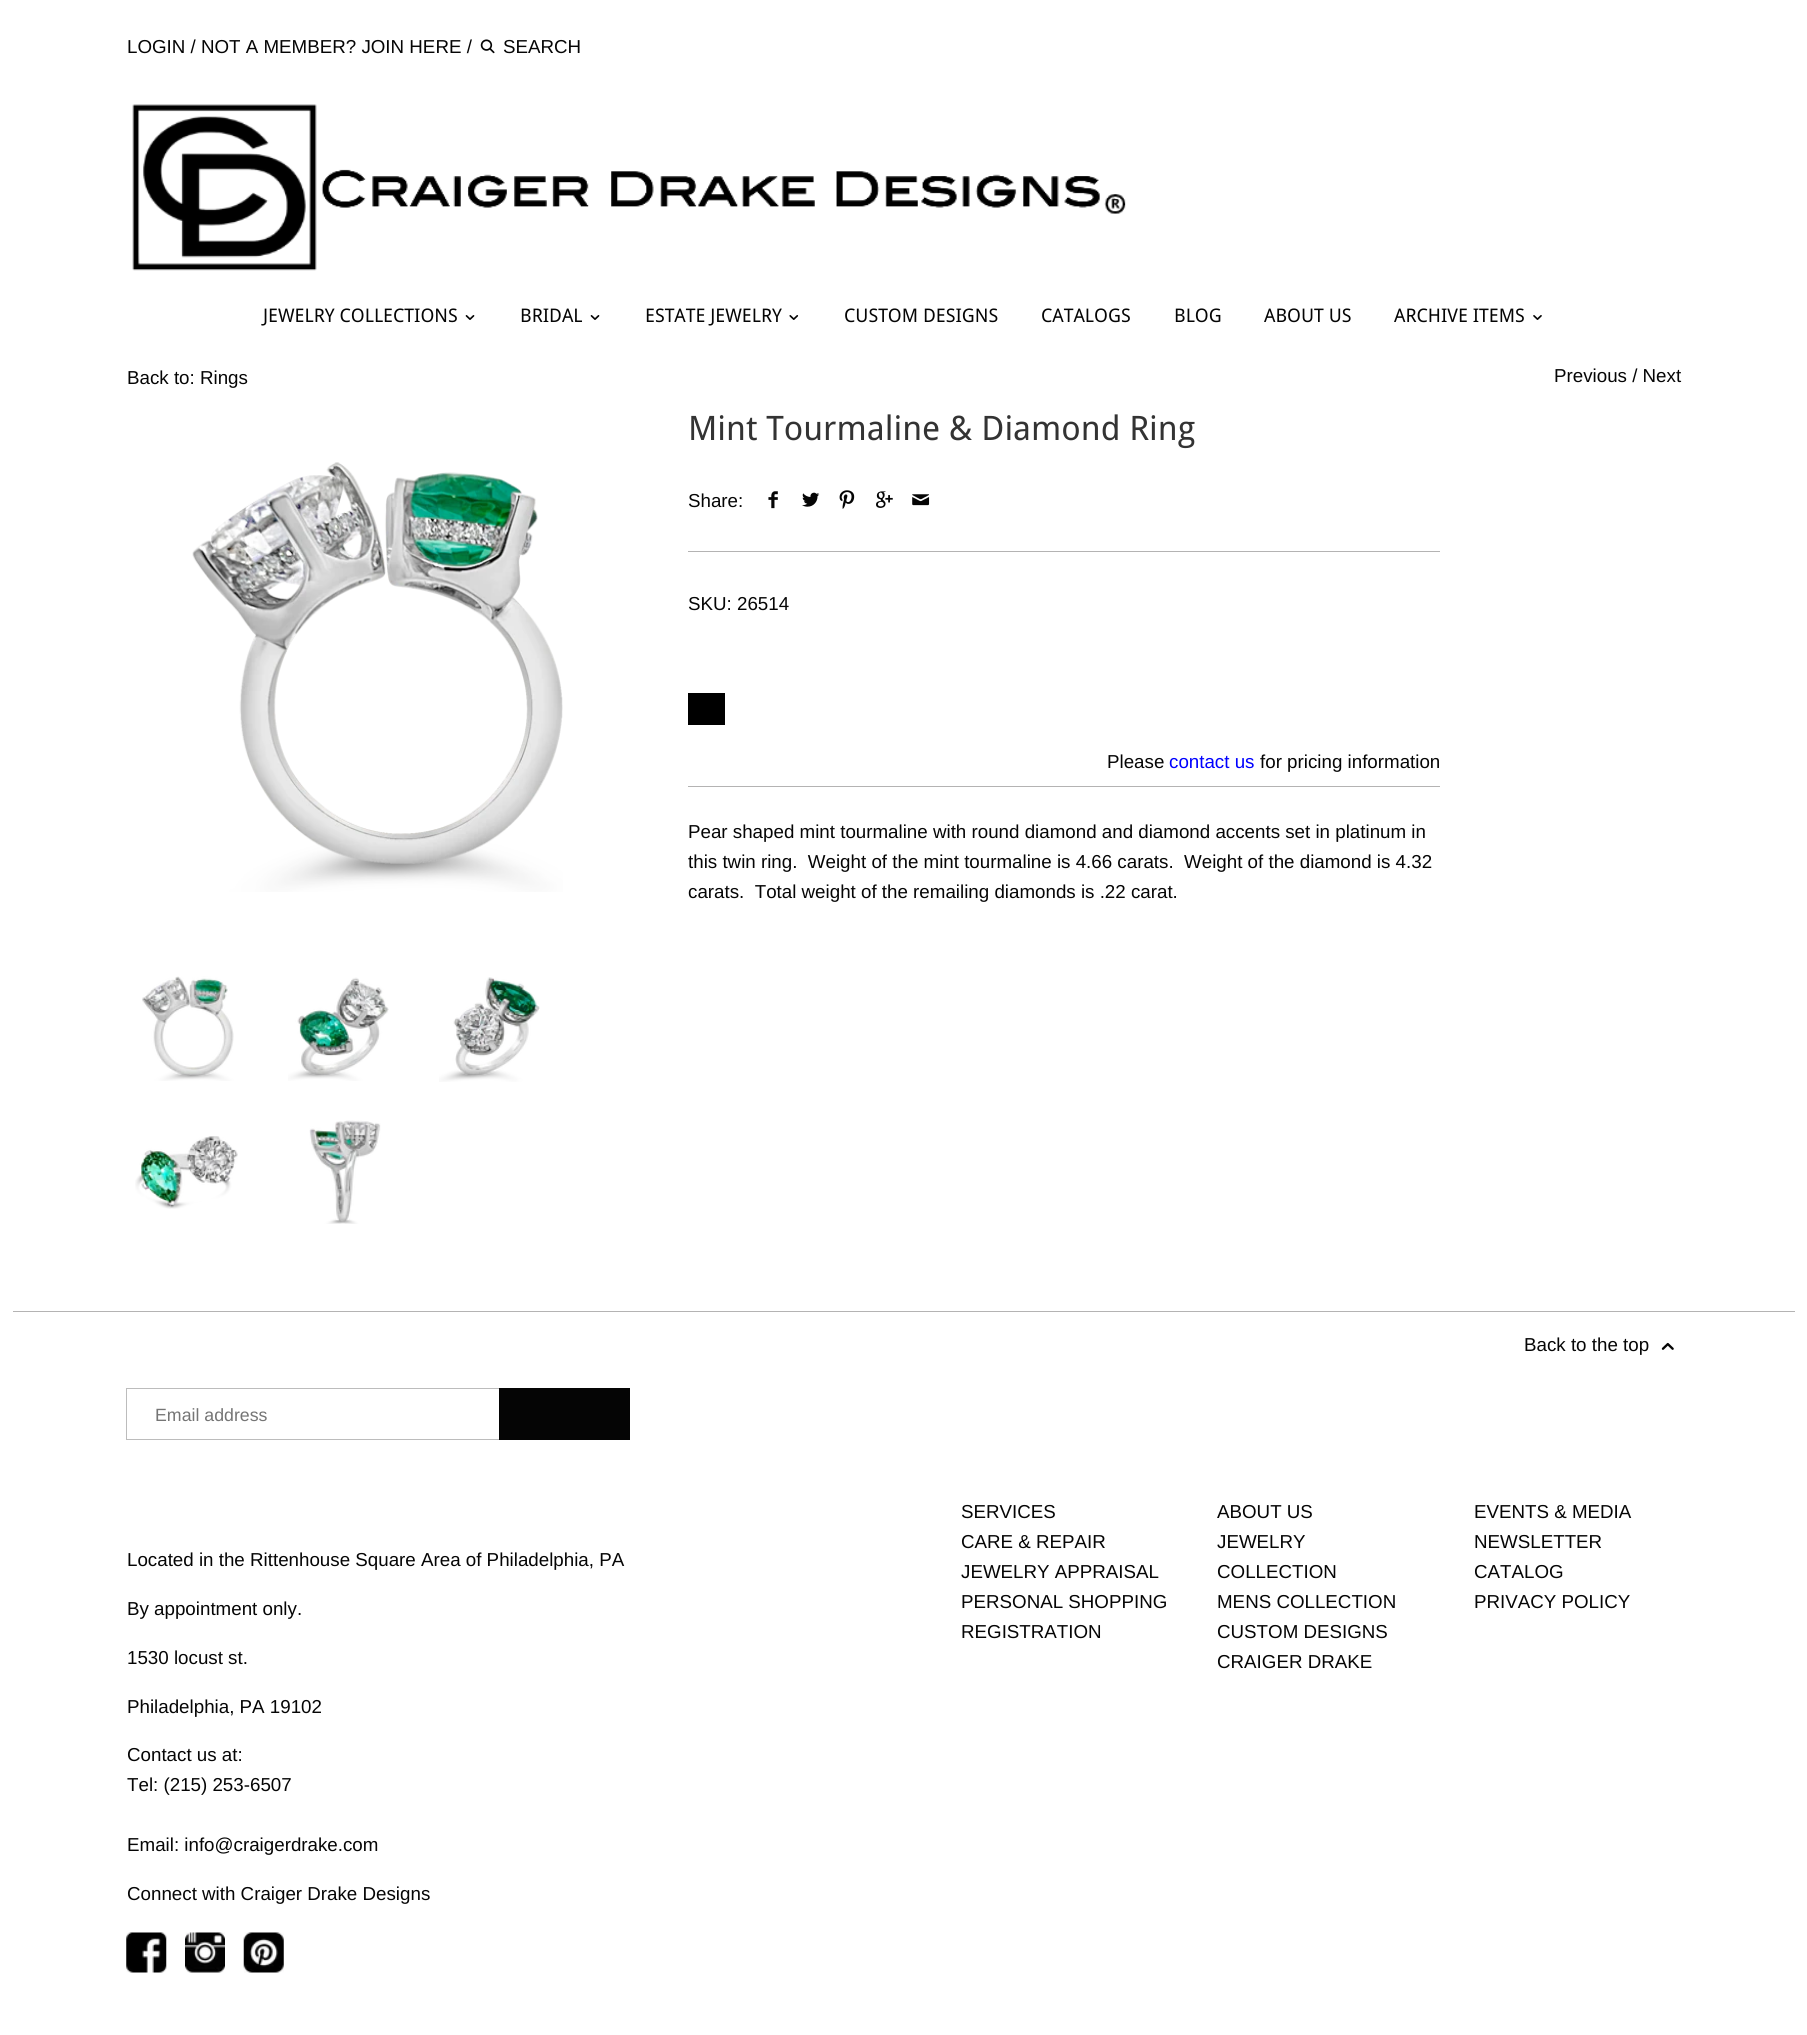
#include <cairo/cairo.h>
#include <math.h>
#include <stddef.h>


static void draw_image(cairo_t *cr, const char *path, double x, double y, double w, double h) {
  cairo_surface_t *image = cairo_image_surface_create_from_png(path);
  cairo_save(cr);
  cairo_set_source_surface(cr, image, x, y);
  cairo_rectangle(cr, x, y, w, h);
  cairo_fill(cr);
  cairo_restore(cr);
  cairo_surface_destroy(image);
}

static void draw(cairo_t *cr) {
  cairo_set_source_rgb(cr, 1, 1, 1);
  cairo_paint(cr);
  draw_image(cr, "images/1.png", 480, 39, 15, 15);
  draw_image(cr, "images/2.png", 132, 104, 994, 167);
  draw_image(cr, "images/3.png", 465, 315, 10, 5);
  draw_image(cr, "images/3.png", 590, 315, 10, 5);
  draw_image(cr, "images/4.png", 789, 315, 10, 5);
  draw_image(cr, "images/5.png", 1533, 315, 9, 5);
  draw_image(cr, "images/6.png", 192, 462, 371, 430);
  draw_image(cr, "images/7.png", 142, 976, 92, 105);
  draw_image(cr, "images/8.png", 288, 977, 101, 104);
  draw_image(cr, "images/9.png", 439, 977, 101, 105);
  draw_image(cr, "images/10.png", 135, 1136, 103, 73);
  draw_image(cr, "images/11.png", 309, 1120, 72, 104);
  cairo_set_source_rgb(cr, 180 / 255.0, 179 / 255.0, 179 / 255.0);
  cairo_rectangle(cr, 688, 551, 752, 1);
  cairo_fill(cr);
  draw_image(cr, "images/12.png", 768, 491, 10, 18);
  draw_image(cr, "images/13.png", 802, 492, 18, 15);
  draw_image(cr, "images/14.png", 839, 490, 16, 19);
  draw_image(cr, "images/15.png", 876, 491, 17, 17);
  draw_image(cr, "images/16.png", 912, 494, 18, 12);
  cairo_rectangle(cr, 688, 786, 752, 1);
  cairo_fill(cr);
  cairo_set_source_rgb(cr, 0, 0, 0);
  cairo_rectangle(cr, 688, 693, 37, 32);
  cairo_fill(cr);
  cairo_set_source_rgb(cr, 180 / 255.0, 179 / 255.0, 179 / 255.0);
  cairo_rectangle(cr, 13, 1311, 1782, 1);
  cairo_fill(cr);
  draw_image(cr, "images/17.png", 1661, 1342, 13, 8);
  cairo_rectangle(cr, 126.5, 1388.5, 502, 51);
  cairo_set_source_rgb(cr, 188 / 255.0, 188 / 255.0, 188 / 255.0);
  cairo_set_line_width(cr, 1);
  cairo_stroke(cr);
  cairo_set_source_rgb(cr, 5 / 255.0, 5 / 255.0, 5 / 255.0);
  cairo_rectangle(cr, 499, 1388, 131, 52);
  cairo_fill(cr);
  draw_image(cr, "images/18.png", 126, 1932, 41, 41);
  draw_image(cr, "images/19.png", 185, 1932, 40, 41);
  draw_image(cr, "images/20.png", 243, 1932, 41, 41);
  cairo_select_font_face(cr, "Liberation Sans", CAIRO_FONT_SLANT_NORMAL, CAIRO_FONT_WEIGHT_NORMAL);
  cairo_set_font_size(cr, 18.75);
  cairo_move_to(cr, 127, 53);
  cairo_show_text(cr, "LOGIN / NOT A MEMBER? JOIN HERE /");
  cairo_move_to(cr, 503, 53);
  cairo_show_text(cr, "SEARCH");
  cairo_select_font_face(cr, "Droid Sans", CAIRO_FONT_SLANT_NORMAL, CAIRO_FONT_WEIGHT_NORMAL);
  cairo_move_to(cr, 263, 322);
  cairo_show_text(cr, "JEWELRY COLLECTIONS");
  cairo_move_to(cr, 520, 322);
  cairo_show_text(cr, "BRIDAL");
  cairo_move_to(cr, 645, 322);
  cairo_show_text(cr, "ESTATE JEWELRY");
  cairo_move_to(cr, 844, 322);
  cairo_show_text(cr, "CUSTOM DESIGNS");
  cairo_move_to(cr, 1041, 322);
  cairo_show_text(cr, "CATALOGS");
  cairo_move_to(cr, 1174, 322);
  cairo_show_text(cr, "BLOG");
  cairo_move_to(cr, 1264, 322);
  cairo_show_text(cr, "ABOUT US");
  cairo_move_to(cr, 1394, 322);
  cairo_show_text(cr, "ARCHIVE ITEMS");
  cairo_select_font_face(cr, "Liberation Sans", CAIRO_FONT_SLANT_NORMAL, CAIRO_FONT_WEIGHT_NORMAL);
  cairo_move_to(cr, 127, 384);
  cairo_show_text(cr, "Back to: Rings");
  cairo_move_to(cr, 1554, 382);
  cairo_show_text(cr, "Previous / Next");
  cairo_select_font_face(cr, "Droid Sans", CAIRO_FONT_SLANT_NORMAL, CAIRO_FONT_WEIGHT_NORMAL);
  cairo_set_font_size(cr, 33.75);
  cairo_set_source_rgb(cr, 51 / 255.0, 51 / 255.0, 51 / 255.0);
  cairo_move_to(cr, 688, 440);
  cairo_show_text(cr, "Mint Tourmaline & Diamond Ring");
  cairo_select_font_face(cr, "Liberation Sans", CAIRO_FONT_SLANT_NORMAL, CAIRO_FONT_WEIGHT_NORMAL);
  cairo_set_font_size(cr, 18.75);
  cairo_set_source_rgb(cr, 5 / 255.0, 5 / 255.0, 5 / 255.0);
  cairo_move_to(cr, 688, 507);
  cairo_show_text(cr, "Share:");
  cairo_move_to(cr, 688, 610);
  cairo_show_text(cr, "SKU: 26514");
  cairo_move_to(cr, 1107, 768);
  cairo_show_text(cr, "Please");
  cairo_set_source_rgb(cr, 0, 0, 1);
  cairo_move_to(cr, 1169, 768);
  cairo_show_text(cr, "contact us");
  cairo_set_source_rgb(cr, 5 / 255.0, 5 / 255.0, 5 / 255.0);
  cairo_move_to(cr, 1260, 768);
  cairo_show_text(cr, "for pricing information");
  cairo_move_to(cr, 688, 838);
  cairo_show_text(cr, "Pear shaped mint tourmaline with round diamond and diamond accents set in platinum in");
  cairo_move_to(cr, 688, 868);
  cairo_show_text(cr, "this twin ring.  Weight of the mint tourmaline is 4.66 carats.  Weight of the diamond is 4.32");
  cairo_move_to(cr, 688, 898);
  cairo_show_text(cr, "carats.  Total weight of the remailing diamonds is .22 carat.");
  cairo_move_to(cr, 1524, 1351);
  cairo_show_text(cr, "Back to the top");
  cairo_set_font_size(cr, 17.75);
  cairo_set_source_rgb(cr, 117 / 255.0, 117 / 255.0, 117 / 255.0);
  cairo_move_to(cr, 155, 1421);
  cairo_show_text(cr, "Email address");
  cairo_set_font_size(cr, 18.75);
  cairo_set_source_rgb(cr, 5 / 255.0, 5 / 255.0, 5 / 255.0);
  cairo_move_to(cr, 127, 1566);
  cairo_show_text(cr, "Located in the Rittenhouse Square Area of Philadelphia, PA");
  cairo_move_to(cr, 127, 1615);
  cairo_show_text(cr, "By appointment only.");
  cairo_move_to(cr, 127, 1664);
  cairo_show_text(cr, "1530 locust st.");
  cairo_move_to(cr, 127, 1713);
  cairo_show_text(cr, "Philadelphia, PA 19102");
  cairo_move_to(cr, 127, 1761);
  cairo_show_text(cr, "Contact us at:");
  cairo_move_to(cr, 127, 1791);
  cairo_show_text(cr, "Tel: (215) 253-6507");
  cairo_move_to(cr, 127, 1851);
  cairo_show_text(cr, "Email: info@craigerdrake.com");
  cairo_move_to(cr, 127, 1900);
  cairo_show_text(cr, "Connect with Craiger Drake Designs");
  cairo_move_to(cr, 961, 1518);
  cairo_show_text(cr, "SERVICES");
  cairo_move_to(cr, 961, 1548);
  cairo_show_text(cr, "CARE & REPAIR");
  cairo_move_to(cr, 961, 1578);
  cairo_show_text(cr, "JEWELRY APPRAISAL");
  cairo_move_to(cr, 961, 1608);
  cairo_show_text(cr, "PERSONAL SHOPPING");
  cairo_move_to(cr, 961, 1638);
  cairo_show_text(cr, "REGISTRATION");
  cairo_move_to(cr, 1217, 1518);
  cairo_show_text(cr, "ABOUT US");
  cairo_move_to(cr, 1217, 1548);
  cairo_show_text(cr, "JEWELRY");
  cairo_move_to(cr, 1217, 1578);
  cairo_show_text(cr, "COLLECTION");
  cairo_move_to(cr, 1217, 1608);
  cairo_show_text(cr, "MENS COLLECTION");
  cairo_move_to(cr, 1217, 1638);
  cairo_show_text(cr, "CUSTOM DESIGNS");
  cairo_move_to(cr, 1217, 1668);
  cairo_show_text(cr, "CRAIGER DRAKE");
  cairo_move_to(cr, 1474, 1518);
  cairo_show_text(cr, "EVENTS & MEDIA");
  cairo_move_to(cr, 1474, 1548);
  cairo_show_text(cr, "NEWSLETTER");
  cairo_move_to(cr, 1474, 1578);
  cairo_show_text(cr, "CATALOG");
  cairo_move_to(cr, 1474, 1608);
  cairo_show_text(cr, "PRIVACY POLICY");
}

int main(void) {
  cairo_surface_t *surface = cairo_image_surface_create(CAIRO_FORMAT_RGB24, 1807, 2035);
  cairo_t *cr = cairo_create(surface);
  cairo_font_options_t *options = cairo_font_options_create();
  cairo_font_options_set_hint_metrics(options, CAIRO_HINT_METRICS_OFF);
  cairo_font_options_set_hint_style(options, CAIRO_HINT_STYLE_NONE);
  cairo_set_font_options(cr, options);
  cairo_set_miter_limit(cr, 4);
  draw(cr);
  cairo_surface_write_to_png(surface, "out.png");
  cairo_font_options_destroy(options);
  cairo_destroy(cr);
  cairo_surface_destroy(surface);
  return 0;
}
